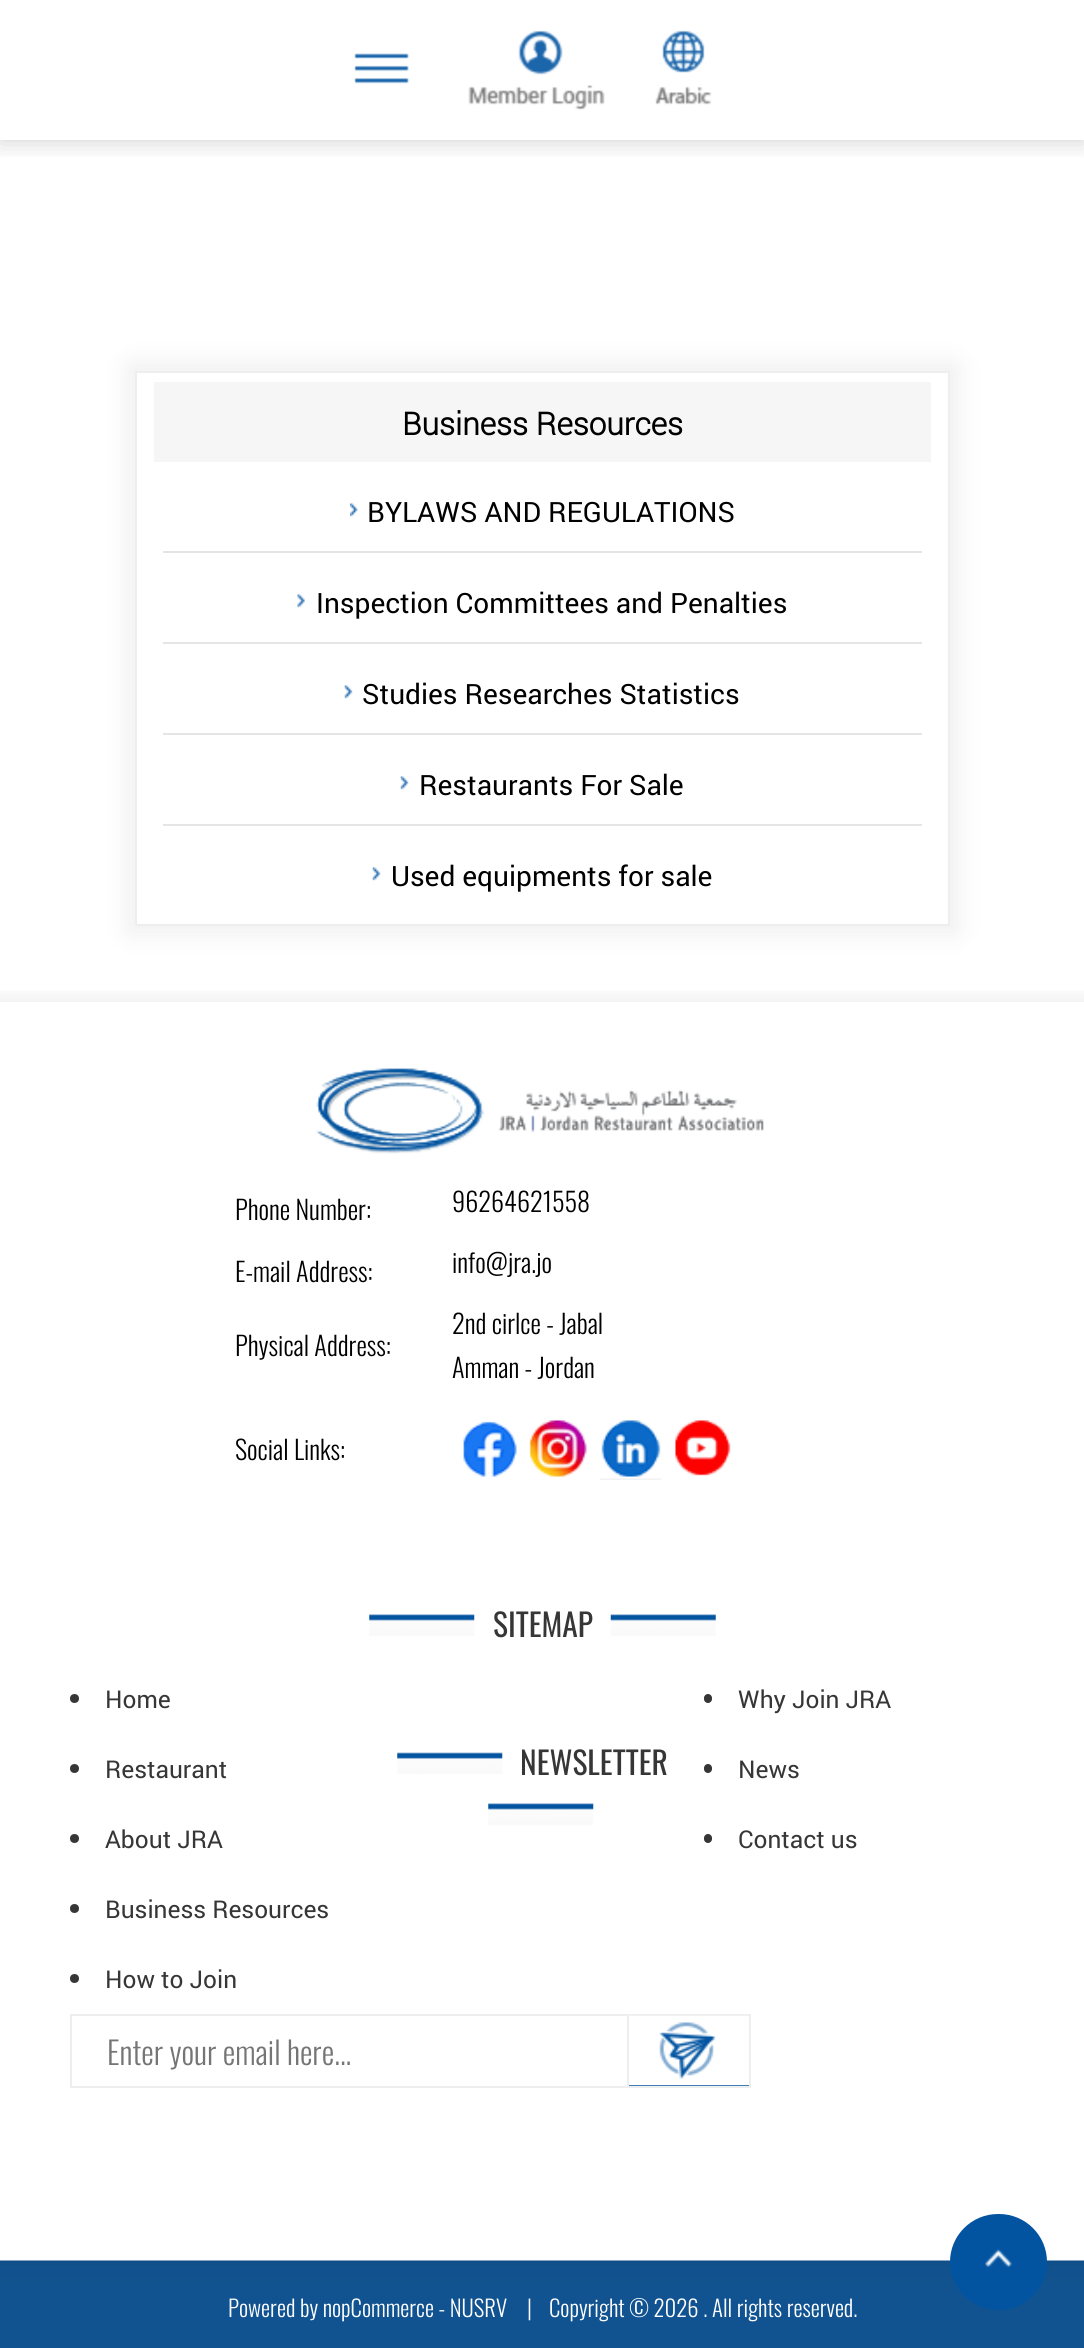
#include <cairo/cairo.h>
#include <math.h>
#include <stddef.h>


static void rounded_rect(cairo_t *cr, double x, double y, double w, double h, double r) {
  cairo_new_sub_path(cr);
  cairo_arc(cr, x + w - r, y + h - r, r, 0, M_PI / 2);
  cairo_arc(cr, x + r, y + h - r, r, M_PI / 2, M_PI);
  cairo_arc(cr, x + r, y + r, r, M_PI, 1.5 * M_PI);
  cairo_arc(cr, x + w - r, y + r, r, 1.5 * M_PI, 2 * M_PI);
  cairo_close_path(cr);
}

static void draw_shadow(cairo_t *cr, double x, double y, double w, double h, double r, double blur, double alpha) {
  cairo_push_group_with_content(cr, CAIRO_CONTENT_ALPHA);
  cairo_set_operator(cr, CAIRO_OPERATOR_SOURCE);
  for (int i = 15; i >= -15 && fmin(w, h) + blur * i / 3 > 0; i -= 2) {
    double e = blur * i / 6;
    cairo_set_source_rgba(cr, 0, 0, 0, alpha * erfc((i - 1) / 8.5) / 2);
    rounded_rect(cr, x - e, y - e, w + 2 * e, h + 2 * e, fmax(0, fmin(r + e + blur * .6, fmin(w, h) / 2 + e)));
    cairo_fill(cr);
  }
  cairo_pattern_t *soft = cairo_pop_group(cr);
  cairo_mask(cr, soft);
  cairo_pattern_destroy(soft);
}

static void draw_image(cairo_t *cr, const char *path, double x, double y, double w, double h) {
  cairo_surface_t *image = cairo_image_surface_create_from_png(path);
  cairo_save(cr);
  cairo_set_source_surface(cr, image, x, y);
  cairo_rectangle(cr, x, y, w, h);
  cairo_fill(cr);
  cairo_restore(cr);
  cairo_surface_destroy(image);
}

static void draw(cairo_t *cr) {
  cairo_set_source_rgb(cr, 1, 1, 1);
  cairo_paint(cr);
  cairo_save(cr);
  cairo_rectangle(cr, 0, 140, 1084, 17);
  cairo_clip(cr);
  cairo_set_source_rgb(cr, 0, 0, 0);
  draw_shadow(cr, 0, 0, 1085, 140, 0, 13, 0.2);
  cairo_restore(cr);
  draw_image(cr, "images/1.png", 354, 53, 55, 31);
  draw_image(cr, "images/2.png", 468, 30, 137, 80);
  draw_image(cr, "images/3.png", 655, 30, 57, 75);
  cairo_save(cr);
  cairo_set_fill_rule(cr, CAIRO_FILL_RULE_EVEN_ODD);
  cairo_new_path(cr);
  cairo_move_to(cr, 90, 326);
  cairo_line_to(cr, 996, 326);
  cairo_line_to(cr, 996, 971);
  cairo_line_to(cr, 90, 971);
  cairo_close_path(cr);
  cairo_move_to(cr, 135, 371);
  cairo_line_to(cr, 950, 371);
  cairo_line_to(cr, 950, 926);
  cairo_line_to(cr, 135, 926);
  cairo_close_path(cr);
  cairo_clip(cr);
  cairo_set_source_rgb(cr, 237 / 255.0, 237 / 255.0, 237 / 255.0);
  draw_shadow(cr, 130, 366, 826, 565, 0, 13, 1);
  cairo_restore(cr);
  cairo_rectangle(cr, 136, 372, 813, 553);
  cairo_set_source_rgb(cr, 238 / 255.0, 238 / 255.0, 238 / 255.0);
  cairo_stroke(cr);
  cairo_set_source_rgb(cr, 246 / 255.0, 246 / 255.0, 246 / 255.0);
  cairo_rectangle(cr, 154, 382, 777, 80);
  cairo_fill(cr);
  cairo_set_source_rgb(cr, 229 / 255.0, 229 / 255.0, 229 / 255.0);
  cairo_rectangle(cr, 163, 551, 759, 2);
  cairo_fill(cr);
  draw_image(cr, "images/4.png", 350, 503, 8, 14);
  cairo_rectangle(cr, 163, 642, 759, 2);
  cairo_fill(cr);
  draw_image(cr, "images/5.png", 297, 594, 8, 14);
  cairo_rectangle(cr, 163, 733, 759, 2);
  cairo_fill(cr);
  draw_image(cr, "images/6.png", 344, 685, 9, 14);
  cairo_rectangle(cr, 163, 824, 759, 2);
  cairo_fill(cr);
  draw_image(cr, "images/6.png", 400, 776, 9, 14);
  draw_image(cr, "images/6.png", 372, 867, 9, 14);
  draw_image(cr, "images/7.png", 0, 991, 1084, 11);
  draw_image(cr, "images/8.png", 316, 1068, 448, 86);
  draw_image(cr, "images/9.png", 463, 1421, 54, 56);
  draw_image(cr, "images/10.png", 529, 1420, 58, 57);
  draw_image(cr, "images/11.png", 600, 1420, 62, 60);
  draw_image(cr, "images/12.png", 675, 1420, 56, 56);
  draw_image(cr, "images/13.png", 369, 1614, 106, 22);
  draw_image(cr, "images/14.png", 610, 1614, 106, 22);
  cairo_set_source_rgb(cr, 54 / 255.0, 54 / 255.0, 54 / 255.0);
  cairo_arc(cr, 74.5, 1698.5, 4.5, 0, 2 * M_PI);
  cairo_fill(cr);
  cairo_arc(cr, 74.5, 1768.5, 4.5, 0, 2 * M_PI);
  cairo_fill(cr);
  cairo_arc(cr, 74.5, 1838.5, 4.5, 0, 2 * M_PI);
  cairo_fill(cr);
  cairo_arc(cr, 74.5, 1908.5, 4.5, 0, 2 * M_PI);
  cairo_fill(cr);
  cairo_arc(cr, 74.5, 1978.5, 4.5, 0, 2 * M_PI);
  cairo_fill(cr);
  rounded_rect(cr, 704, 1694, 8, 9, 4);
  cairo_fill(cr);
  rounded_rect(cr, 704, 1764, 8, 9, 4);
  cairo_fill(cr);
  rounded_rect(cr, 704, 1834, 8, 9, 4);
  cairo_fill(cr);
  draw_image(cr, "images/15.png", 397, 1752, 106, 22);
  draw_image(cr, "images/13.png", 488, 1803, 106, 22);
  cairo_rectangle(cr, 71, 2015, 679, 72);
  cairo_set_source_rgb(cr, 238 / 255.0, 238 / 255.0, 238 / 255.0);
  cairo_stroke(cr);
  cairo_set_source_rgb(cr, 2 / 255.0, 84 / 255.0, 161 / 255.0);
  cairo_rectangle(cr, 629, 2022, 120, 64);
  cairo_fill(cr);
  draw_image(cr, "images/16.png", 627, 2015, 122, 71);
  cairo_set_source_rgb(cr, 238 / 255.0, 238 / 255.0, 238 / 255.0);
  cairo_rectangle(cr, 627, 2016, 2, 70);
  cairo_fill(cr);
  draw_image(cr, "images/17.png", 0, 2260, 1084, 88);
  cairo_set_source_rgb(cr, 2 / 255.0, 84 / 255.0, 161 / 255.0);
  rounded_rect(cr, 950, 2214, 97, 96, 48);
  cairo_fill(cr);
  draw_image(cr, "images/18.png", 985, 2249, 27, 18);
  cairo_select_font_face(cr, "Roboto", CAIRO_FONT_SLANT_NORMAL, CAIRO_FONT_WEIGHT_BOLD);
  cairo_set_font_size(cr, 31.5);
  cairo_set_source_rgb(cr, 0, 0, 0);
  cairo_move_to(cr, 402, 435);
  cairo_show_text(cr, "Business Resources");
  cairo_select_font_face(cr, "Roboto", CAIRO_FONT_SLANT_NORMAL, CAIRO_FONT_WEIGHT_NORMAL);
  cairo_set_font_size(cr, 28);
  cairo_move_to(cr, 367, 522);
  cairo_show_text(cr, "BYLAWS AND REGULATIONS");
  cairo_move_to(cr, 316, 613);
  cairo_show_text(cr, "Inspection Committees and Penalties");
  cairo_move_to(cr, 362, 704);
  cairo_show_text(cr, "Studies Researches Statistics");
  cairo_move_to(cr, 419, 795);
  cairo_show_text(cr, "Restaurants For Sale");
  cairo_move_to(cr, 391, 886);
  cairo_show_text(cr, "Used equipments for sale");
  cairo_select_font_face(cr, "Oswald Light", CAIRO_FONT_SLANT_NORMAL, CAIRO_FONT_WEIGHT_NORMAL);
  cairo_set_font_size(cr, 26.25);
  cairo_move_to(cr, 235, 1220);
  cairo_show_text(cr, "Phone Number:");
  cairo_move_to(cr, 452, 1212);
  cairo_show_text(cr, "96264621558");
  cairo_move_to(cr, 235, 1282);
  cairo_show_text(cr, "E-mail Address:");
  cairo_move_to(cr, 452, 1273);
  cairo_show_text(cr, "info@jra.jo");
  cairo_move_to(cr, 235, 1356);
  cairo_show_text(cr, "Physical Address:");
  cairo_move_to(cr, 452, 1334);
  cairo_show_text(cr, "2nd cirlce - Jabal");
  cairo_move_to(cr, 452, 1378);
  cairo_show_text(cr, "Amman - Jordan");
  cairo_move_to(cr, 235, 1460);
  cairo_show_text(cr, "Social Links:");
  cairo_select_font_face(cr, "Oswald", CAIRO_FONT_SLANT_NORMAL, CAIRO_FONT_WEIGHT_NORMAL);
  cairo_set_font_size(cr, 31.5);
  cairo_set_source_rgb(cr, 54 / 255.0, 54 / 255.0, 54 / 255.0);
  cairo_move_to(cr, 493, 1637);
  cairo_show_text(cr, "SITEMAP");
  cairo_select_font_face(cr, "Roboto", CAIRO_FONT_SLANT_NORMAL, CAIRO_FONT_WEIGHT_NORMAL);
  cairo_set_font_size(cr, 24.5);
  cairo_move_to(cr, 105, 1708);
  cairo_show_text(cr, "Home");
  cairo_move_to(cr, 105, 1778);
  cairo_show_text(cr, "Restaurant");
  cairo_move_to(cr, 105, 1848);
  cairo_show_text(cr, "About JRA");
  cairo_move_to(cr, 105, 1918);
  cairo_show_text(cr, "Business Resources");
  cairo_move_to(cr, 105, 1988);
  cairo_show_text(cr, "How to Join");
  cairo_move_to(cr, 738, 1708);
  cairo_show_text(cr, "Why Join JRA");
  cairo_move_to(cr, 738, 1778);
  cairo_show_text(cr, "News");
  cairo_move_to(cr, 738, 1848);
  cairo_show_text(cr, "Contact us");
  cairo_select_font_face(cr, "Oswald", CAIRO_FONT_SLANT_NORMAL, CAIRO_FONT_WEIGHT_NORMAL);
  cairo_set_font_size(cr, 31.5);
  cairo_move_to(cr, 520, 1775);
  cairo_show_text(cr, "NEWSLETTER");
  cairo_select_font_face(cr, "Oswald Light", CAIRO_FONT_SLANT_NORMAL, CAIRO_FONT_WEIGHT_NORMAL);
  cairo_set_source_rgb(cr, 117 / 255.0, 117 / 255.0, 117 / 255.0);
  cairo_move_to(cr, 107, 2065);
  cairo_show_text(cr, "Enter your email here...");
  cairo_set_font_size(cr, 22.75);
  cairo_set_source_rgb(cr, 1, 1, 1);
  cairo_move_to(cr, 228, 2317);
  cairo_show_text(cr, "Powered by nopCommerce - NUSRV");
  cairo_move_to(cr, 527, 2317);
  cairo_show_text(cr, "|");
  cairo_move_to(cr, 549, 2317);
  cairo_show_text(cr, "Copyright © 2026 . All rights reserved.");
}

int main(void) {
  cairo_surface_t *surface = cairo_image_surface_create(CAIRO_FORMAT_RGB24, 1084, 2348);
  cairo_t *cr = cairo_create(surface);
  cairo_font_options_t *options = cairo_font_options_create();
  cairo_font_options_set_hint_metrics(options, CAIRO_HINT_METRICS_OFF);
  cairo_font_options_set_hint_style(options, CAIRO_HINT_STYLE_NONE);
  cairo_set_font_options(cr, options);
  cairo_set_miter_limit(cr, 4);
  draw(cr);
  cairo_surface_write_to_png(surface, "out.png");
  cairo_font_options_destroy(options);
  cairo_destroy(cr);
  cairo_surface_destroy(surface);
  return 0;
}
